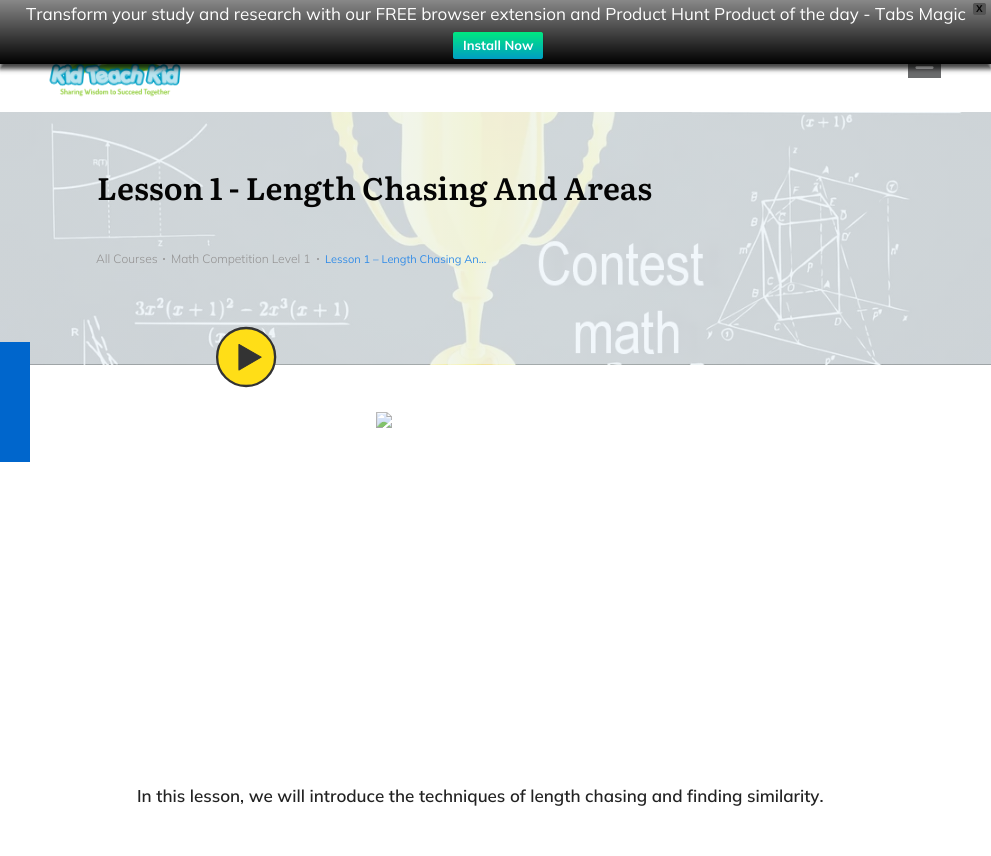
#include <cairo/cairo.h>
#include <math.h>
#include <stddef.h>


static void rounded_rect(cairo_t *cr, double x, double y, double w, double h, double r) {
  cairo_new_sub_path(cr);
  cairo_arc(cr, x + w - r, y + h - r, r, 0, M_PI / 2);
  cairo_arc(cr, x + r, y + h - r, r, M_PI / 2, M_PI);
  cairo_arc(cr, x + r, y + r, r, M_PI, 1.5 * M_PI);
  cairo_arc(cr, x + w - r, y + r, r, 1.5 * M_PI, 2 * M_PI);
  cairo_close_path(cr);
}

static void draw_shadow(cairo_t *cr, double x, double y, double w, double h, double r, double blur, double alpha) {
  cairo_push_group_with_content(cr, CAIRO_CONTENT_ALPHA);
  cairo_set_operator(cr, CAIRO_OPERATOR_SOURCE);
  for (int i = 15; i >= -15 && fmin(w, h) + blur * i / 3 > 0; i -= 2) {
    double e = blur * i / 6;
    cairo_set_source_rgba(cr, 0, 0, 0, alpha * erfc((i - 1) / 8.5) / 2);
    rounded_rect(cr, x - e, y - e, w + 2 * e, h + 2 * e, fmax(0, fmin(r + e + blur * .6, fmin(w, h) / 2 + e)));
    cairo_fill(cr);
  }
  cairo_pattern_t *soft = cairo_pop_group(cr);
  cairo_mask(cr, soft);
  cairo_pattern_destroy(soft);
}

static void draw_image(cairo_t *cr, const char *path, double x, double y, double w, double h) {
  cairo_surface_t *image = cairo_image_surface_create_from_png(path);
  cairo_save(cr);
  cairo_set_source_surface(cr, image, x, y);
  cairo_rectangle(cr, x, y, w, h);
  cairo_fill(cr);
  cairo_restore(cr);
  cairo_surface_destroy(image);
}

static void draw(cairo_t *cr) {
  cairo_pattern_t *gradient;
  cairo_set_source_rgb(cr, 1, 1, 1);
  cairo_paint(cr);
  draw_image(cr, "images/1.png", 49, 64, 132, 33);
  draw_image(cr, "images/2.png", 908, 64, 33, 14);
  cairo_set_source_rgb(cr, 0, 0, 0);
  draw_shadow(cr, 0, 5, 991, 64, 0, 2.5, 0.75);
  gradient = cairo_pattern_create_linear(496, 0, 496, 64);
  cairo_pattern_add_color_stop_rgba(gradient, 0, 136 / 255.0, 136 / 255.0, 136 / 255.0, 1);
  cairo_pattern_add_color_stop_rgba(gradient, 1, 0, 0, 0, 1);
  cairo_set_source(cr, gradient);
  cairo_pattern_destroy(gradient);
  cairo_rectangle(cr, 0, 0, 991, 64);
  cairo_fill(cr);
  cairo_set_source_rgb(cr, 0, 0, 0);
  draw_shadow(cr, 453, 33, 90, 27, 2, 1, 0.2);
  gradient = cairo_pattern_create_linear(498, 32, 498, 59);
  cairo_pattern_add_color_stop_rgba(gradient, 0, 0, 232 / 255.0, 128 / 255.0, 1);
  cairo_pattern_add_color_stop_rgba(gradient, 1, 0, 158 / 255.0, 195 / 255.0, 1);
  cairo_set_source(cr, gradient);
  cairo_pattern_destroy(gradient);
  rounded_rect(cr, 453, 32, 90, 27, 2);
  cairo_fill(cr);
  cairo_set_source_rgb(cr, 84 / 255.0, 84 / 255.0, 84 / 255.0);
  rounded_rect(cr, 973.5, 3.5, 12, 11, 1.5);
  cairo_fill_preserve(cr);
  cairo_set_line_width(cr, 1);
  cairo_stroke(cr);
  draw_image(cr, "images/3.png", 0, 112, 991, 253);
  cairo_set_source_rgb(cr, 0, 102 / 255.0, 204 / 255.0);
  cairo_rectangle(cr, 0, 342, 30, 120);
  cairo_fill(cr);
  cairo_set_source_rgb(cr, 161 / 255.0, 161 / 255.0, 162 / 255.0);
  cairo_rectangle(cr, 163, 258, 2, 2);
  cairo_fill(cr);
  cairo_set_source_rgb(cr, 161 / 255.0, 162 / 255.0, 163 / 255.0);
  cairo_rectangle(cr, 317, 258, 2, 2);
  cairo_fill(cr);
  draw_image(cr, "images/4.png", 216, 326, 176, 102);
  cairo_select_font_face(cr, "Mulish", CAIRO_FONT_SLANT_NORMAL, CAIRO_FONT_WEIGHT_NORMAL);
  cairo_set_font_size(cr, 17);
  cairo_set_source_rgb(cr, 1, 1, 1);
  cairo_move_to(cr, 26, 20);
  cairo_show_text(cr, "Transform your study and research with our FREE browser extension and Product Hunt Product of the day - Tabs Magic");
  cairo_select_font_face(cr, "Mulish", CAIRO_FONT_SLANT_NORMAL, CAIRO_FONT_WEIGHT_BOLD);
  cairo_set_font_size(cr, 13);
  cairo_move_to(cr, 463, 50);
  cairo_show_text(cr, "Install Now");
  cairo_select_font_face(cr, "Liberation Sans", CAIRO_FONT_SLANT_NORMAL, CAIRO_FONT_WEIGHT_BOLD);
  cairo_set_font_size(cr, 10);
  cairo_set_source_rgb(cr, 4 / 255.0, 4 / 255.0, 4 / 255.0);
  cairo_move_to(cr, 976, 12);
  cairo_show_text(cr, "X");
  cairo_select_font_face(cr, "Literata SemiBold", CAIRO_FONT_SLANT_NORMAL, CAIRO_FONT_WEIGHT_NORMAL);
  cairo_set_font_size(cr, 31);
  cairo_move_to(cr, 97, 200);
  cairo_show_text(cr, "Lesson 1 - Length Chasing And Areas");
  cairo_select_font_face(cr, "Mulish Light", CAIRO_FONT_SLANT_NORMAL, CAIRO_FONT_WEIGHT_NORMAL);
  cairo_set_font_size(cr, 12);
  cairo_set_source_rgb(cr, 147 / 255.0, 146 / 255.0, 146 / 255.0);
  cairo_move_to(cr, 96, 263);
  cairo_show_text(cr, "All Courses");
  cairo_move_to(cr, 171, 263);
  cairo_show_text(cr, "Math Competition Level 1");
  cairo_select_font_face(cr, "Mulish", CAIRO_FONT_SLANT_NORMAL, CAIRO_FONT_WEIGHT_NORMAL);
  cairo_set_font_size(cr, 11);
  cairo_set_source_rgb(cr, 50 / 255.0, 140 / 255.0, 231 / 255.0);
  cairo_move_to(cr, 325, 263);
  cairo_show_text(cr, "Lesson 1 – Length Chasing An…");
  cairo_select_font_face(cr, "Mulish SemiBold", CAIRO_FONT_SLANT_NORMAL, CAIRO_FONT_WEIGHT_NORMAL);
  cairo_set_font_size(cr, 17);
  cairo_set_source_rgb(cr, 34 / 255.0, 34 / 255.0, 34 / 255.0);
  cairo_move_to(cr, 137, 802);
  cairo_show_text(cr, "In this lesson, we will introduce the techniques of length chasing and finding similarity.");
}

int main(void) {
  cairo_surface_t *surface = cairo_image_surface_create(CAIRO_FORMAT_RGB24, 991, 856);
  cairo_t *cr = cairo_create(surface);
  cairo_font_options_t *options = cairo_font_options_create();
  cairo_font_options_set_hint_metrics(options, CAIRO_HINT_METRICS_OFF);
  cairo_font_options_set_hint_style(options, CAIRO_HINT_STYLE_NONE);
  cairo_set_font_options(cr, options);
  cairo_set_miter_limit(cr, 4);
  draw(cr);
  cairo_surface_write_to_png(surface, "out.png");
  cairo_font_options_destroy(options);
  cairo_destroy(cr);
  cairo_surface_destroy(surface);
  return 0;
}
